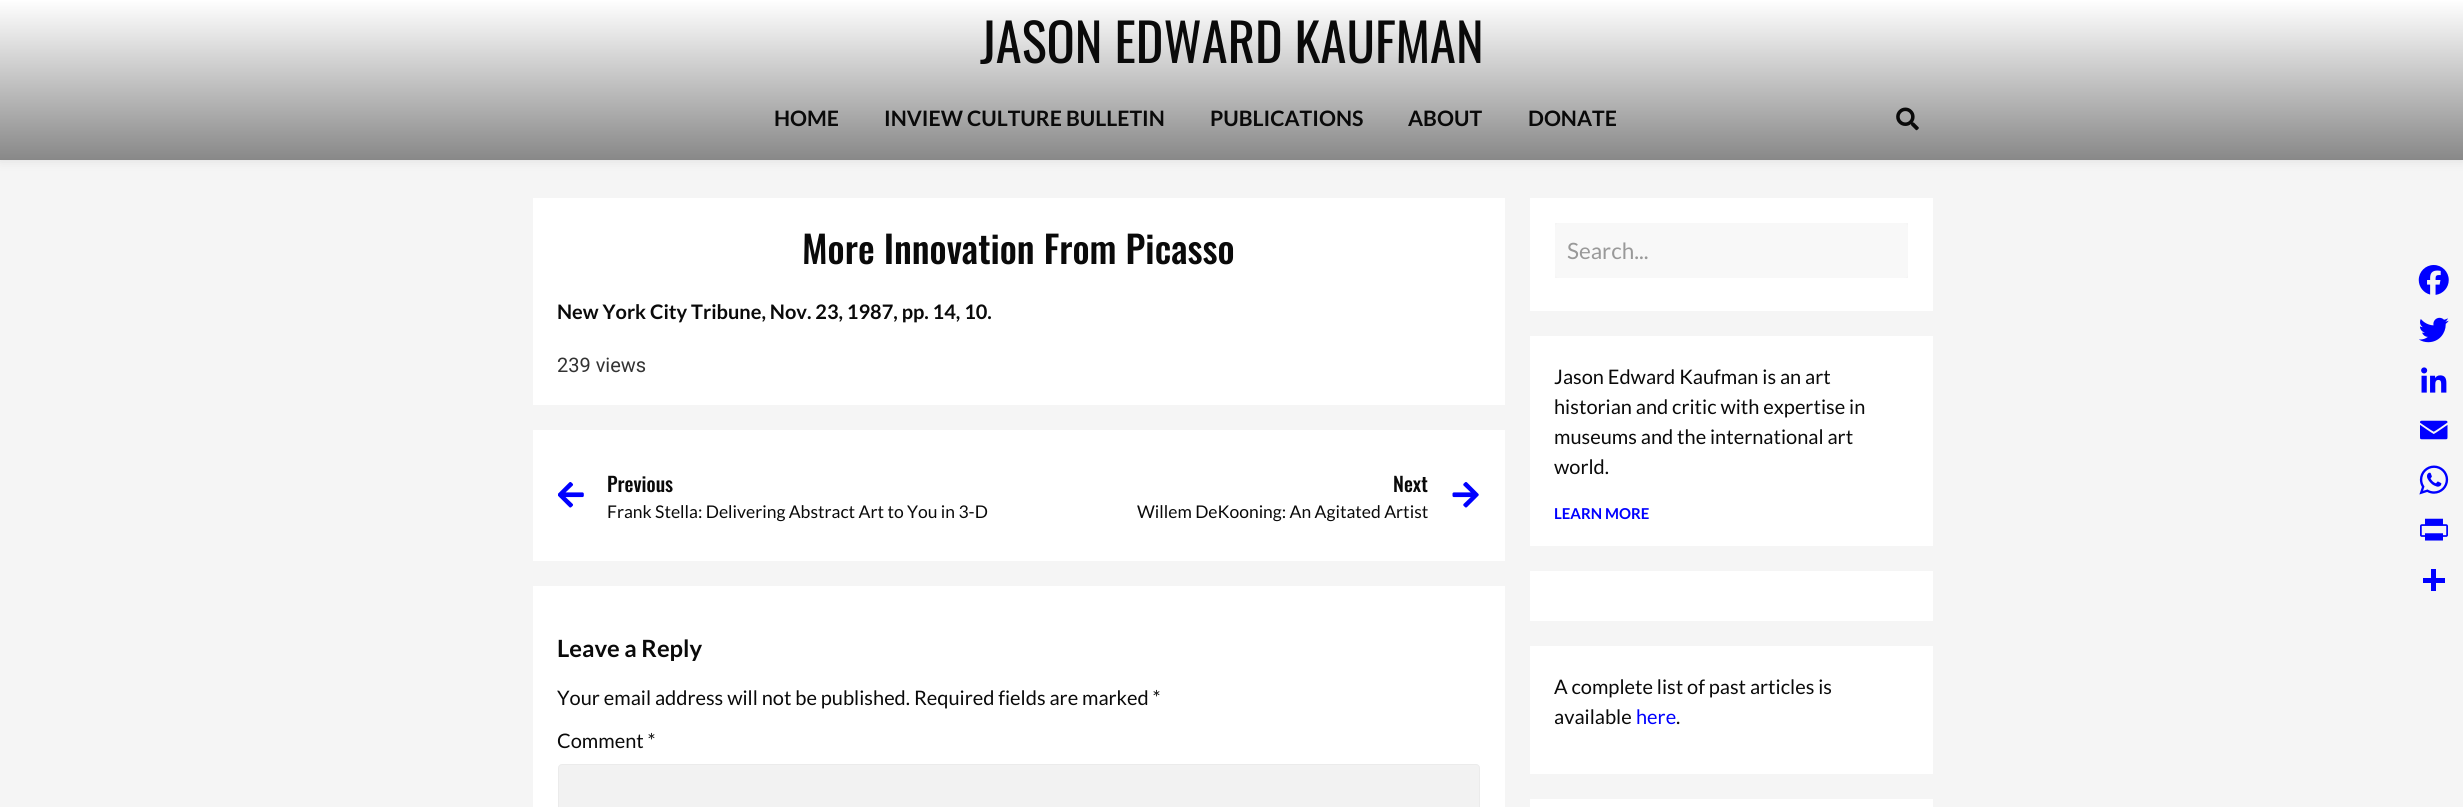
#include <cairo/cairo.h>
#include <math.h>
#include <stddef.h>


static void rounded_rect(cairo_t *cr, double x, double y, double w, double h, double r) {
  cairo_new_sub_path(cr);
  cairo_arc(cr, x + w - r, y + h - r, r, 0, M_PI / 2);
  cairo_arc(cr, x + r, y + h - r, r, M_PI / 2, M_PI);
  cairo_arc(cr, x + r, y + r, r, M_PI, 1.5 * M_PI);
  cairo_arc(cr, x + w - r, y + r, r, 1.5 * M_PI, 2 * M_PI);
  cairo_close_path(cr);
}

static void draw_shadow(cairo_t *cr, double x, double y, double w, double h, double r, double blur, double alpha) {
  cairo_push_group_with_content(cr, CAIRO_CONTENT_ALPHA);
  cairo_set_operator(cr, CAIRO_OPERATOR_SOURCE);
  for (int i = 15; i >= -15 && fmin(w, h) + blur * i / 3 > 0; i -= 2) {
    double e = blur * i / 6;
    cairo_set_source_rgba(cr, 0, 0, 0, alpha * erfc((i - 1) / 8.5) / 2);
    rounded_rect(cr, x - e, y - e, w + 2 * e, h + 2 * e, fmax(0, fmin(r + e + blur * .6, fmin(w, h) / 2 + e)));
    cairo_fill(cr);
  }
  cairo_pattern_t *soft = cairo_pop_group(cr);
  cairo_mask(cr, soft);
  cairo_pattern_destroy(soft);
}

static void draw_image(cairo_t *cr, const char *path, double x, double y, double w, double h) {
  cairo_surface_t *image = cairo_image_surface_create_from_png(path);
  cairo_save(cr);
  cairo_set_source_surface(cr, image, x, y);
  cairo_rectangle(cr, x, y, w, h);
  cairo_fill(cr);
  cairo_restore(cr);
  cairo_surface_destroy(image);
}

static void draw(cairo_t *cr) {
  cairo_pattern_t *gradient;
  cairo_set_source_rgb(cr, 245 / 255.0, 245 / 255.0, 245 / 255.0);
  cairo_paint(cr);
  cairo_set_source_rgb(cr, 0, 0, 0);
  draw_shadow(cr, 0, 0, 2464, 160, 0, 6, 0.1);
  gradient = cairo_pattern_create_linear(1232, 160, 1232, 0);
  cairo_pattern_add_color_stop_rgba(gradient, 0, 136 / 255.0, 136 / 255.0, 136 / 255.0, 1);
  cairo_pattern_add_color_stop_rgba(gradient, 1, 1, 1, 1, 1);
  cairo_set_source(cr, gradient);
  cairo_pattern_destroy(gradient);
  cairo_rectangle(cr, 0, 0, 2463, 160);
  cairo_fill(cr);
  draw_image(cr, "images/1.png", 1896, 107, 23, 24);
  cairo_set_source_rgb(cr, 1, 1, 1);
  cairo_rectangle(cr, 533, 198, 972, 207);
  cairo_fill(cr);
  cairo_rectangle(cr, 533, 430, 972, 131);
  cairo_fill(cr);
  draw_image(cr, "images/2.png", 558, 482, 26, 26);
  draw_image(cr, "images/3.png", 1452, 482, 27, 26);
  cairo_rectangle(cr, 533, 586, 972, 221);
  cairo_fill(cr);
  cairo_set_source_rgb(cr, 242 / 255.0, 242 / 255.0, 242 / 255.0);
  rounded_rect(cr, 558.5, 764.5, 921, 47, 3.5);
  cairo_fill_preserve(cr);
  cairo_set_source_rgb(cr, 235 / 255.0, 235 / 255.0, 235 / 255.0);
  cairo_set_line_width(cr, 1);
  cairo_stroke(cr);
  cairo_set_source_rgb(cr, 1, 1, 1);
  cairo_rectangle(cr, 1530, 198, 403, 113);
  cairo_fill(cr);
  cairo_set_source_rgb(cr, 245 / 255.0, 245 / 255.0, 245 / 255.0);
  cairo_rectangle(cr, 1555, 223, 353, 55);
  cairo_fill(cr);
  cairo_set_source_rgb(cr, 248 / 255.0, 248 / 255.0, 248 / 255.0);
  rounded_rect(cr, 1555, 223, 353, 55, 4);
  cairo_fill(cr);
  cairo_set_source_rgb(cr, 1, 1, 1);
  cairo_rectangle(cr, 1530, 336, 403, 210);
  cairo_fill(cr);
  cairo_rectangle(cr, 1530, 571, 403, 50);
  cairo_fill(cr);
  cairo_rectangle(cr, 1530, 646, 403, 128);
  cairo_fill(cr);
  cairo_rectangle(cr, 1530, 799, 403, 8);
  cairo_fill(cr);
  draw_image(cr, "images/4.png", 2418, 265, 31, 30);
  draw_image(cr, "images/5.png", 2419, 317, 30, 26);
  draw_image(cr, "images/6.png", 2421, 367, 26, 26);
  draw_image(cr, "images/7.png", 2420, 420, 28, 20);
  draw_image(cr, "images/8.png", 2419, 465, 30, 30);
  draw_image(cr, "images/9.png", 2420, 518, 28, 23);
  cairo_set_source_rgb(cr, 0, 0, 1);
  cairo_rectangle(cr, 2431, 569, 5, 22);
  cairo_fill(cr);
  cairo_rectangle(cr, 2423, 578, 22, 5);
  cairo_fill(cr);
  cairo_select_font_face(cr, "Oswald", CAIRO_FONT_SLANT_NORMAL, CAIRO_FONT_WEIGHT_NORMAL);
  cairo_set_font_size(cr, 52.5);
  cairo_set_source_rgb(cr, 10 / 255.0, 10 / 255.0, 10 / 255.0);
  cairo_move_to(cr, 980, 63);
  cairo_show_text(cr, "JASON EDWARD KAUFMAN");
  cairo_select_font_face(cr, "Lato", CAIRO_FONT_SLANT_NORMAL, CAIRO_FONT_WEIGHT_BOLD);
  cairo_set_font_size(cr, 21.25);
  cairo_move_to(cr, 774, 126);
  cairo_show_text(cr, "HOME");
  cairo_move_to(cr, 884, 126);
  cairo_show_text(cr, "INVIEW CULTURE BULLETIN");
  cairo_move_to(cr, 1210, 126);
  cairo_show_text(cr, "PUBLICATIONS");
  cairo_move_to(cr, 1408, 126);
  cairo_show_text(cr, "ABOUT");
  cairo_move_to(cr, 1528, 126);
  cairo_show_text(cr, "DONATE");
  cairo_select_font_face(cr, "Oswald Medium", CAIRO_FONT_SLANT_NORMAL, CAIRO_FONT_WEIGHT_NORMAL);
  cairo_set_font_size(cr, 37.5);
  cairo_move_to(cr, 802, 264);
  cairo_show_text(cr, "More Innovation From Picasso");
  cairo_select_font_face(cr, "Lato", CAIRO_FONT_SLANT_NORMAL, CAIRO_FONT_WEIGHT_BOLD);
  cairo_set_font_size(cr, 20);
  cairo_move_to(cr, 557, 319);
  cairo_show_text(cr, "New York City Tribune, Nov. 23, 1987, pp. 14, 10.");
  cairo_select_font_face(cr, "Roboto", CAIRO_FONT_SLANT_NORMAL, CAIRO_FONT_WEIGHT_NORMAL);
  cairo_set_source_rgb(cr, 51 / 255.0, 51 / 255.0, 51 / 255.0);
  cairo_move_to(cr, 557, 372);
  cairo_show_text(cr, "239 views");
  cairo_select_font_face(cr, "Oswald Medium", CAIRO_FONT_SLANT_NORMAL, CAIRO_FONT_WEIGHT_NORMAL);
  cairo_set_source_rgb(cr, 10 / 255.0, 10 / 255.0, 10 / 255.0);
  cairo_move_to(cr, 607, 492);
  cairo_show_text(cr, "Previous");
  cairo_select_font_face(cr, "Lato", CAIRO_FONT_SLANT_NORMAL, CAIRO_FONT_WEIGHT_NORMAL);
  cairo_set_font_size(cr, 17.5);
  cairo_move_to(cr, 607, 518);
  cairo_show_text(cr, "Frank Stella: Delivering Abstract Art to You in 3-D");
  cairo_select_font_face(cr, "Oswald Medium", CAIRO_FONT_SLANT_NORMAL, CAIRO_FONT_WEIGHT_NORMAL);
  cairo_set_font_size(cr, 20);
  cairo_move_to(cr, 1393, 492);
  cairo_show_text(cr, "Next");
  cairo_select_font_face(cr, "Lato", CAIRO_FONT_SLANT_NORMAL, CAIRO_FONT_WEIGHT_NORMAL);
  cairo_set_font_size(cr, 17.5);
  cairo_move_to(cr, 1137, 518);
  cairo_show_text(cr, "Willem DeKooning: An Agitated Artist");
  cairo_select_font_face(cr, "Lato", CAIRO_FONT_SLANT_NORMAL, CAIRO_FONT_WEIGHT_BOLD);
  cairo_set_font_size(cr, 23.75);
  cairo_move_to(cr, 557, 657);
  cairo_show_text(cr, "Leave a Reply");
  cairo_select_font_face(cr, "Lato", CAIRO_FONT_SLANT_NORMAL, CAIRO_FONT_WEIGHT_NORMAL);
  cairo_set_font_size(cr, 20);
  cairo_move_to(cr, 557, 705);
  cairo_show_text(cr, "Your email address will not be published. Required fields are marked *");
  cairo_move_to(cr, 557, 748);
  cairo_show_text(cr, "Comment *");
  cairo_set_font_size(cr, 22.5);
  cairo_set_source_rgb(cr, 153 / 255.0, 153 / 255.0, 153 / 255.0);
  cairo_move_to(cr, 1567, 259);
  cairo_show_text(cr, "Search...");
  cairo_set_font_size(cr, 20);
  cairo_set_source_rgb(cr, 10 / 255.0, 10 / 255.0, 10 / 255.0);
  cairo_move_to(cr, 1554, 384);
  cairo_show_text(cr, "Jason Edward Kaufman is an art");
  cairo_move_to(cr, 1554, 414);
  cairo_show_text(cr, "historian and critic with expertise in");
  cairo_move_to(cr, 1554, 444);
  cairo_show_text(cr, "museums and the international art");
  cairo_move_to(cr, 1554, 474);
  cairo_show_text(cr, "world.");
  cairo_select_font_face(cr, "Lato", CAIRO_FONT_SLANT_NORMAL, CAIRO_FONT_WEIGHT_BOLD);
  cairo_set_font_size(cr, 15);
  cairo_set_source_rgb(cr, 0, 0, 1);
  cairo_move_to(cr, 1554, 519);
  cairo_show_text(cr, "LEARN MORE");
  cairo_select_font_face(cr, "Lato", CAIRO_FONT_SLANT_NORMAL, CAIRO_FONT_WEIGHT_NORMAL);
  cairo_set_font_size(cr, 20);
  cairo_set_source_rgb(cr, 10 / 255.0, 10 / 255.0, 10 / 255.0);
  cairo_move_to(cr, 1554, 694);
  cairo_show_text(cr, "A complete list of past articles is");
  cairo_move_to(cr, 1554, 724);
  cairo_show_text(cr, "available");
  cairo_set_source_rgb(cr, 0, 0, 1);
  cairo_move_to(cr, 1636, 724);
  cairo_show_text(cr, "here");
  cairo_set_source_rgb(cr, 10 / 255.0, 10 / 255.0, 10 / 255.0);
  cairo_move_to(cr, 1676, 724);
  cairo_show_text(cr, ".");
}

int main(void) {
  cairo_surface_t *surface = cairo_image_surface_create(CAIRO_FORMAT_RGB24, 2463, 807);
  cairo_t *cr = cairo_create(surface);
  cairo_font_options_t *options = cairo_font_options_create();
  cairo_font_options_set_hint_metrics(options, CAIRO_HINT_METRICS_OFF);
  cairo_font_options_set_hint_style(options, CAIRO_HINT_STYLE_NONE);
  cairo_set_font_options(cr, options);
  cairo_set_miter_limit(cr, 4);
  draw(cr);
  cairo_surface_write_to_png(surface, "out.png");
  cairo_font_options_destroy(options);
  cairo_destroy(cr);
  cairo_surface_destroy(surface);
  return 0;
}
